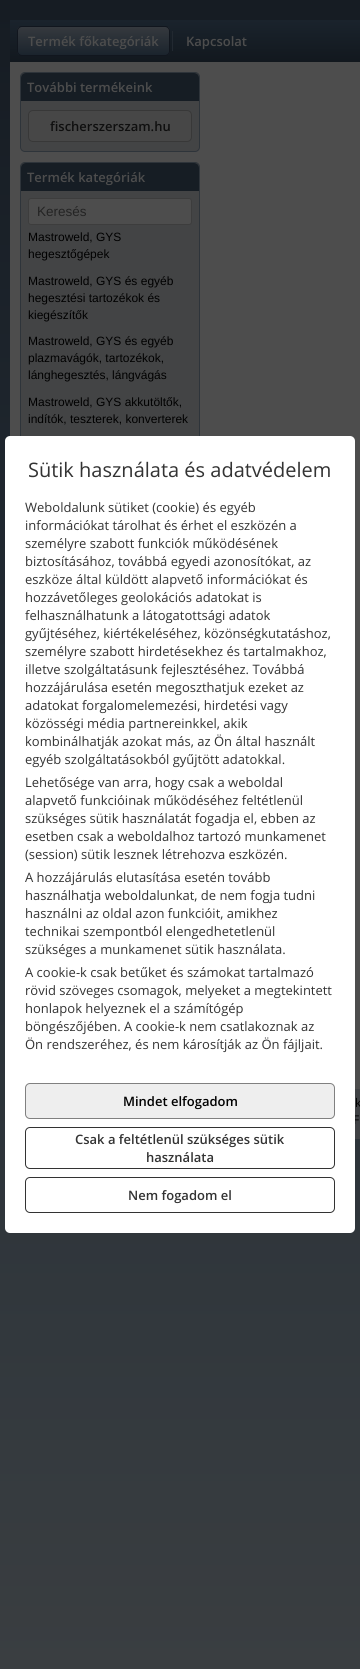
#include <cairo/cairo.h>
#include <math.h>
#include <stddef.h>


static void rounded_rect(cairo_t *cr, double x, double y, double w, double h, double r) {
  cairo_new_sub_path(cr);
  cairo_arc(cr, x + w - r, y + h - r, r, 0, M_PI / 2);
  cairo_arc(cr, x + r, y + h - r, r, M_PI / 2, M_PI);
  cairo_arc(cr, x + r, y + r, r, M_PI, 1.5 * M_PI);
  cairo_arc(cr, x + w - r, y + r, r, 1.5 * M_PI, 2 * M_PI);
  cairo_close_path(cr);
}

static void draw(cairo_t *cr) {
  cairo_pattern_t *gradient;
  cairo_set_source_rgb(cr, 1, 1, 1);
  cairo_paint(cr);
  gradient = cairo_pattern_create_linear(180, 0, 180, 1669);
  cairo_pattern_add_color_stop_rgba(gradient, 0, 22 / 255.0, 28 / 255.0, 35 / 255.0, 1);
  cairo_pattern_add_color_stop_rgba(gradient, 0.4, 34 / 255.0, 42 / 255.0, 50 / 255.0, 1);
  cairo_pattern_add_color_stop_rgba(gradient, 0.8, 50 / 255.0, 56 / 255.0, 61 / 255.0, 1);
  cairo_pattern_add_color_stop_rgba(gradient, 1, 58 / 255.0, 62 / 255.0, 65 / 255.0, 1);
  cairo_set_source(cr, gradient);
  cairo_pattern_destroy(gradient);
  cairo_rectangle(cr, 0, 0, 360, 1669);
  cairo_fill(cr);
  cairo_set_source_rgb(cr, 77 / 255.0, 77 / 255.0, 77 / 255.0);
  cairo_rectangle(cr, 10, 62, 350, 1027);
  cairo_fill(cr);
  gradient = cairo_pattern_create_linear(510, 20, 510, 62);
  cairo_pattern_add_color_stop_rgba(gradient, 0, 26 / 255.0, 35 / 255.0, 44 / 255.0, 1);
  cairo_pattern_add_color_stop_rgba(gradient, 1, 18 / 255.0, 24 / 255.0, 30 / 255.0, 1);
  cairo_set_source(cr, gradient);
  cairo_pattern_destroy(gradient);
  cairo_rectangle(cr, 10, 20, 350, 42);
  cairo_fill(cr);
  cairo_set_source_rgb(cr, 34 / 255.0, 41 / 255.0, 49 / 255.0);
  cairo_rectangle(cr, 172, 31, 1, 20);
  cairo_fill(cr);
  cairo_save(cr);
  rounded_rect(cr, 17, 26, 153, 30, 5);
  cairo_clip(cr);
  gradient = cairo_pattern_create_linear(94, 27, 94, 55);
  cairo_pattern_add_color_stop_rgba(gradient, 0, 53 / 255.0, 57 / 255.0, 62 / 255.0, 1);
  cairo_pattern_add_color_stop_rgba(gradient, 1, 27 / 255.0, 36 / 255.0, 45 / 255.0, 1);
  cairo_set_source(cr, gradient);
  cairo_pattern_destroy(gradient);
  cairo_rectangle(cr, 17, 27, 153, 28);
  cairo_fill(cr);
  cairo_restore(cr);
  rounded_rect(cr, 17.5, 26.5, 152, 29, 4.5);
  cairo_set_source_rgb(cr, 17 / 255.0, 22 / 255.0, 30 / 255.0);
  cairo_set_line_width(cr, 1);
  cairo_stroke(cr);
  cairo_set_source_rgb(cr, 67 / 255.0, 68 / 255.0, 69 / 255.0);
  rounded_rect(cr, 20.5, 72.5, 179, 79, 4.5);
  cairo_fill_preserve(cr);
  cairo_set_source_rgb(cr, 46 / 255.0, 52 / 255.0, 58 / 255.0);
  cairo_stroke(cr);
  cairo_set_source_rgb(cr, 22 / 255.0, 29 / 255.0, 36 / 255.0);
  cairo_new_path(cr);
  cairo_move_to(cr, 26, 73);
  cairo_line_to(cr, 194, 73);
  cairo_curve_to(cr, 197, 73, 199, 75, 199, 78);
  cairo_line_to(cr, 199, 101);
  cairo_line_to(cr, 21, 101);
  cairo_line_to(cr, 21, 78);
  cairo_curve_to(cr, 21, 75, 23, 73, 26, 73);
  cairo_close_path(cr);
  cairo_fill(cr);
  cairo_set_source_rgb(cr, 71 / 255.0, 71 / 255.0, 71 / 255.0);
  rounded_rect(cr, 28.5, 110.5, 163, 31, 4.5);
  cairo_fill_preserve(cr);
  cairo_set_source_rgb(cr, 56 / 255.0, 56 / 255.0, 56 / 255.0);
  cairo_stroke(cr);
  cairo_set_source_rgb(cr, 67 / 255.0, 68 / 255.0, 69 / 255.0);
  rounded_rect(cr, 20.5, 162.5, 179, 906, 4.5);
  cairo_fill_preserve(cr);
  cairo_set_source_rgb(cr, 46 / 255.0, 52 / 255.0, 58 / 255.0);
  cairo_stroke(cr);
  cairo_set_source_rgb(cr, 22 / 255.0, 29 / 255.0, 36 / 255.0);
  cairo_new_path(cr);
  cairo_move_to(cr, 26, 163);
  cairo_line_to(cr, 194, 163);
  cairo_curve_to(cr, 197, 163, 199, 165, 199, 168);
  cairo_line_to(cr, 199, 191);
  cairo_line_to(cr, 21, 191);
  cairo_line_to(cr, 21, 168);
  cairo_curve_to(cr, 21, 165, 23, 163, 26, 163);
  cairo_close_path(cr);
  cairo_fill(cr);
  cairo_set_source_rgb(cr, 77 / 255.0, 77 / 255.0, 77 / 255.0);
  rounded_rect(cr, 28.5, 198.5, 163, 26, 2.5);
  cairo_fill_preserve(cr);
  cairo_set_source_rgb(cr, 61 / 255.0, 61 / 255.0, 61 / 255.0);
  cairo_stroke(cr);
  cairo_set_source_rgb(cr, 64 / 255.0, 66 / 255.0, 69 / 255.0);
  cairo_rectangle(cr, 355, 1089, 5, 50);
  cairo_fill(cr);
  cairo_select_font_face(cr, "Open Sans SemiBold", CAIRO_FONT_SLANT_NORMAL, CAIRO_FONT_WEIGHT_NORMAL);
  cairo_set_font_size(cr, 13);
  cairo_set_source_rgb(cr, 77 / 255.0, 77 / 255.0, 77 / 255.0);
  cairo_move_to(cr, 28, 46);
  cairo_show_text(cr, "Termék főkategóriák");
  cairo_move_to(cr, 186, 46);
  cairo_show_text(cr, "Kapcsolat");
  cairo_move_to(cr, 27, 92);
  cairo_show_text(cr, "További termékeink");
  cairo_set_source_rgb(cr, 15 / 255.0, 15 / 255.0, 15 / 255.0);
  cairo_move_to(cr, 50, 131);
  cairo_show_text(cr, "fischerszerszam.hu");
  cairo_set_source_rgb(cr, 77 / 255.0, 77 / 255.0, 77 / 255.0);
  cairo_move_to(cr, 27, 182);
  cairo_show_text(cr, "Termék kategóriák");
  cairo_select_font_face(cr, "Liberation Sans", CAIRO_FONT_SLANT_NORMAL, CAIRO_FONT_WEIGHT_NORMAL);
  cairo_set_font_size(cr, 13.5);
  cairo_set_source_rgb(cr, 35 / 255.0, 35 / 255.0, 35 / 255.0);
  cairo_move_to(cr, 37, 216);
  cairo_show_text(cr, "Keresés");
  cairo_set_font_size(cr, 12);
  cairo_set_source_rgb(cr, 0, 0, 0);
  cairo_move_to(cr, 28, 241);
  cairo_show_text(cr, "Mastroweld, GYS");
  cairo_move_to(cr, 28, 258);
  cairo_show_text(cr, "hegesztőgépek");
  cairo_move_to(cr, 28, 285);
  cairo_show_text(cr, "Mastroweld, GYS és egyéb");
  cairo_move_to(cr, 28, 302);
  cairo_show_text(cr, "hegesztési tartozékok és");
  cairo_move_to(cr, 28, 319);
  cairo_show_text(cr, "kiegészítők");
  cairo_move_to(cr, 28, 345);
  cairo_show_text(cr, "Mastroweld, GYS és egyéb");
  cairo_move_to(cr, 28, 362);
  cairo_show_text(cr, "plazmavágók, tartozékok,");
  cairo_move_to(cr, 28, 379);
  cairo_show_text(cr, "lánghegesztés, lángvágás");
  cairo_move_to(cr, 28, 406);
  cairo_show_text(cr, "Mastroweld, GYS akkutöltők,");
  cairo_move_to(cr, 28, 423);
  cairo_show_text(cr, "indítók, teszterek, konverterek");
  cairo_select_font_face(cr, "Open Sans", CAIRO_FONT_SLANT_NORMAL, CAIRO_FONT_WEIGHT_NORMAL);
  cairo_move_to(cr, 355, 1107);
  cairo_show_text(cr, "k");
  cairo_move_to(cr, 353, 1124);
  cairo_show_text(cr, "F");
  cairo_set_source_rgb(cr, 1, 1, 1);
  rounded_rect(cr, 5, 436, 350, 797, 5);
  cairo_fill(cr);
  cairo_set_font_size(cr, 20);
  cairo_set_source_rgb(cr, 51 / 255.0, 51 / 255.0, 51 / 255.0);
  cairo_move_to(cr, 28, 477);
  cairo_show_text(cr, "Sütik használata és adatvédelem");
  cairo_set_font_size(cr, 13);
  cairo_move_to(cr, 25, 512);
  cairo_show_text(cr, "Weboldalunk sütiket (cookie) és egyéb");
  cairo_move_to(cr, 25, 530);
  cairo_show_text(cr, "információkat tárolhat és érhet el eszközén a");
  cairo_move_to(cr, 25, 548);
  cairo_show_text(cr, "személyre szabott funkciók működésének");
  cairo_move_to(cr, 25, 566);
  cairo_show_text(cr, "biztosításához, továbbá egyedi azonosítókat, az");
  cairo_move_to(cr, 25, 584);
  cairo_show_text(cr, "eszköze által küldött alapvető információkat és");
  cairo_move_to(cr, 25, 602);
  cairo_show_text(cr, "hozzávetőleges geolokációs adatokat is");
  cairo_move_to(cr, 25, 620);
  cairo_show_text(cr, "felhasználhatunk a látogatottsági adatok");
  cairo_move_to(cr, 25, 638);
  cairo_show_text(cr, "gyűjtéséhez, kiértékeléséhez, közönségkutatáshoz,");
  cairo_move_to(cr, 25, 656);
  cairo_show_text(cr, "személyre szabott hirdetésekhez és tartalmakhoz,");
  cairo_move_to(cr, 25, 674);
  cairo_show_text(cr, "illetve szolgáltatásunk fejlesztéséhez. Továbbá");
  cairo_move_to(cr, 25, 692);
  cairo_show_text(cr, "hozzájárulása esetén megoszthatjuk ezeket az");
  cairo_move_to(cr, 25, 710);
  cairo_show_text(cr, "adatokat forgalomelemezési, hirdetési vagy");
  cairo_move_to(cr, 25, 728);
  cairo_show_text(cr, "közösségi média partnereinkkel, akik");
  cairo_move_to(cr, 25, 746);
  cairo_show_text(cr, "kombinálhatják azokat más, az Ön által használt");
  cairo_move_to(cr, 25, 764);
  cairo_show_text(cr, "egyéb szolgáltatásokból gyűjtött adatokkal.");
  cairo_move_to(cr, 25, 787);
  cairo_show_text(cr, "Lehetősége van arra, hogy csak a weboldal");
  cairo_move_to(cr, 25, 805);
  cairo_show_text(cr, "alapvető funkcióinak működéséhez feltétlenül");
  cairo_move_to(cr, 25, 823);
  cairo_show_text(cr, "szükséges sütik használatát fogadja el, ebben az");
  cairo_move_to(cr, 25, 841);
  cairo_show_text(cr, "esetben csak a weboldalhoz tartozó munkamenet");
  cairo_move_to(cr, 25, 859);
  cairo_show_text(cr, "(session) sütik lesznek létrehozva eszközén.");
  cairo_move_to(cr, 25, 882);
  cairo_show_text(cr, "A hozzájárulás elutasítása esetén tovább");
  cairo_move_to(cr, 25, 900);
  cairo_show_text(cr, "használhatja weboldalunkat, de nem fogja tudni");
  cairo_move_to(cr, 25, 918);
  cairo_show_text(cr, "használni az oldal azon funkcióit, amikhez");
  cairo_move_to(cr, 25, 936);
  cairo_show_text(cr, "technikai szempontból elengedhetetlenül");
  cairo_move_to(cr, 25, 954);
  cairo_show_text(cr, "szükséges a munkamenet sütik használata.");
  cairo_move_to(cr, 25, 977);
  cairo_show_text(cr, "A cookie-k csak betűket és számokat tartalmazó");
  cairo_move_to(cr, 25, 995);
  cairo_show_text(cr, "rövid szöveges csomagok, melyeket a megtekintett");
  cairo_move_to(cr, 25, 1013);
  cairo_show_text(cr, "honlapok helyeznek el a számítógép");
  cairo_move_to(cr, 25, 1031);
  cairo_show_text(cr, "böngészőjében. A cookie-k nem csatlakoznak az");
  cairo_move_to(cr, 25, 1049);
  cairo_show_text(cr, "Ön rendszeréhez, és nem károsítják az Ön fájljait.");
  cairo_set_source_rgb(cr, 238 / 255.0, 238 / 255.0, 238 / 255.0);
  rounded_rect(cr, 25.5, 1083.5, 309, 35, 4.5);
  cairo_fill_preserve(cr);
  cairo_set_source_rgb(cr, 128 / 255.0, 128 / 255.0, 128 / 255.0);
  cairo_stroke(cr);
  cairo_select_font_face(cr, "Open Sans SemiBold", CAIRO_FONT_SLANT_NORMAL, CAIRO_FONT_WEIGHT_NORMAL);
  cairo_set_source_rgb(cr, 0, 0, 0);
  cairo_move_to(cr, 123, 1106);
  cairo_show_text(cr, "Mindet elfogadom");
  rounded_rect(cr, 25.5, 1127.5, 309, 41, 4.5);
  cairo_set_source_rgb(cr, 51 / 255.0, 51 / 255.0, 51 / 255.0);
  cairo_stroke(cr);
  cairo_move_to(cr, 75, 1144);
  cairo_show_text(cr, "Csak a feltétlenül szükséges sütik");
  cairo_move_to(cr, 146, 1162);
  cairo_show_text(cr, "használata");
  rounded_rect(cr, 25.5, 1177.5, 309, 35, 4.5);
  cairo_stroke(cr);
  cairo_move_to(cr, 128, 1200);
  cairo_show_text(cr, "Nem fogadom el");
}

int main(void) {
  cairo_surface_t *surface = cairo_image_surface_create(CAIRO_FORMAT_RGB24, 360, 1669);
  cairo_t *cr = cairo_create(surface);
  cairo_font_options_t *options = cairo_font_options_create();
  cairo_font_options_set_hint_metrics(options, CAIRO_HINT_METRICS_OFF);
  cairo_font_options_set_hint_style(options, CAIRO_HINT_STYLE_NONE);
  cairo_set_font_options(cr, options);
  cairo_set_miter_limit(cr, 4);
  draw(cr);
  cairo_surface_write_to_png(surface, "out.png");
  cairo_font_options_destroy(options);
  cairo_destroy(cr);
  cairo_surface_destroy(surface);
  return 0;
}
